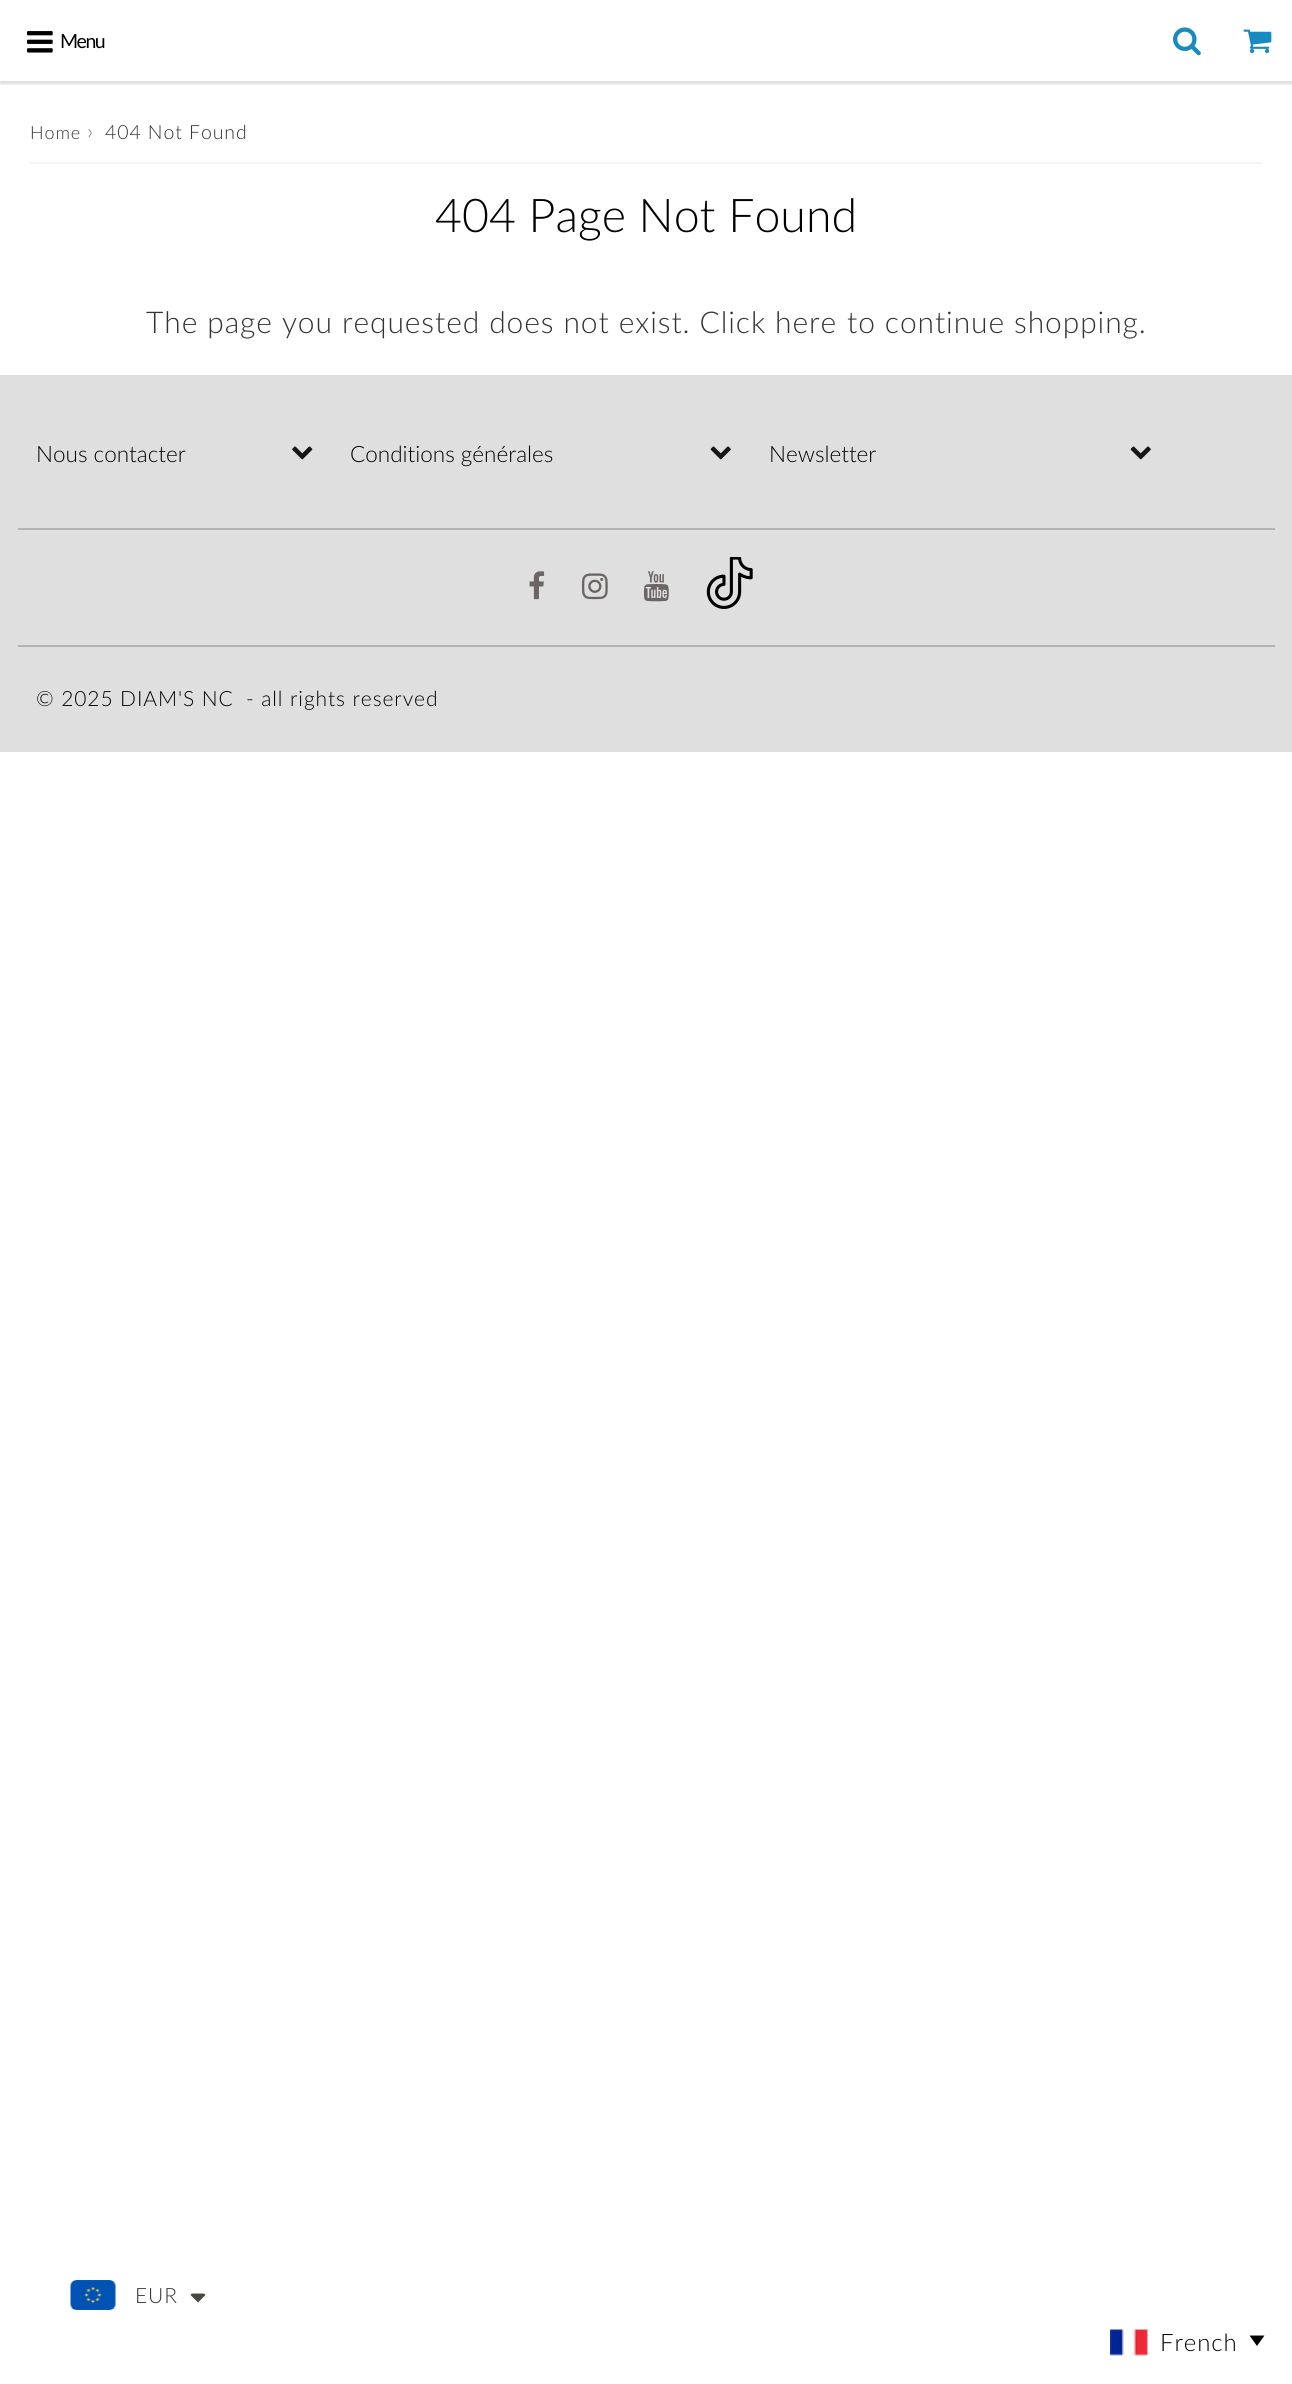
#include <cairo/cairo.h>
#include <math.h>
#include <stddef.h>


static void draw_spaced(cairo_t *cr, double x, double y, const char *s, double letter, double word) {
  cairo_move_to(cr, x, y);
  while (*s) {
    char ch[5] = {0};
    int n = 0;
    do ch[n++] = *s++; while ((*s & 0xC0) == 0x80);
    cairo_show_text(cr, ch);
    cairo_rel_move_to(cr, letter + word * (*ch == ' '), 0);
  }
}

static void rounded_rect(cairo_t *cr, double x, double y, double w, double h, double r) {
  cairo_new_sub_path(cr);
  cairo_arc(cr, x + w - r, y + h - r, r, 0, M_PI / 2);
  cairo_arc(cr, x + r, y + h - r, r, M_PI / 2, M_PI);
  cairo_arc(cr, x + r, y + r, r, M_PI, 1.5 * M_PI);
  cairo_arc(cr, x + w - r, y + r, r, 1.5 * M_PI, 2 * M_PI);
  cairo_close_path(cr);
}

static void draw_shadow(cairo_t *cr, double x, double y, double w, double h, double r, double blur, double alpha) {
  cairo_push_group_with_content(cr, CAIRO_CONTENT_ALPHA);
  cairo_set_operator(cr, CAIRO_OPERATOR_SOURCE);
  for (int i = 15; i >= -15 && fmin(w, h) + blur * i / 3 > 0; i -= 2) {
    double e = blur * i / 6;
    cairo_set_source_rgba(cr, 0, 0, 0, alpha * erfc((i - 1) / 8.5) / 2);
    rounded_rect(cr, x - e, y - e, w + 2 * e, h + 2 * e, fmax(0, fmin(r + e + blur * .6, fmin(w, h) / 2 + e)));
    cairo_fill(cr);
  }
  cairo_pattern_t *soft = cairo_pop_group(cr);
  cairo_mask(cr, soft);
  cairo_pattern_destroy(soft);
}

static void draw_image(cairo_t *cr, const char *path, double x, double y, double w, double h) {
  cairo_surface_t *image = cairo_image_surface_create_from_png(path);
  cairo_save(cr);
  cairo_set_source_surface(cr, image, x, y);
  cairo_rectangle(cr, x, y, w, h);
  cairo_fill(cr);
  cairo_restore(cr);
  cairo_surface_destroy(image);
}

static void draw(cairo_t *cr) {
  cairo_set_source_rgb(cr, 1, 1, 1);
  cairo_paint(cr);
  cairo_save(cr);
  cairo_rectangle(cr, 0, 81, 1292, 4);
  cairo_clip(cr);
  cairo_set_source_rgb(cr, 0, 0, 0);
  draw_shadow(cr, 0, 3, 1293, 81, 0, 3, 0.05);
  draw_shadow(cr, 0, 3, 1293, 81, 0, 1.5, 0.1);
  cairo_restore(cr);
  draw_image(cr, "images/1.png", 27, 31, 26, 22);
  draw_image(cr, "images/2.png", 1173, 27, 28, 29);
  draw_image(cr, "images/3.png", 1243, 29, 29, 25);
  cairo_set_source_rgb(cr, 245 / 255.0, 245 / 255.0, 245 / 255.0);
  cairo_rectangle(cr, 30, 162, 1233, 2);
  cairo_fill(cr);
  cairo_set_source_rgb(cr, 223 / 255.0, 223 / 255.0, 223 / 255.0);
  cairo_rectangle(cr, 0, 375, 1292, 377);
  cairo_fill(cr);
  draw_image(cr, "images/4.png", 292, 446, 21, 14);
  draw_image(cr, "images/5.png", 710, 446, 21, 14);
  draw_image(cr, "images/5.png", 1130, 446, 21, 14);
  cairo_set_source_rgb(cr, 178 / 255.0, 178 / 255.0, 178 / 255.0);
  cairo_rectangle(cr, 18, 528, 1257, 2);
  cairo_fill(cr);
  draw_image(cr, "images/6.png", 529, 571, 16, 29);
  draw_image(cr, "images/7.png", 582, 573, 26, 27);
  draw_image(cr, "images/8.png", 643, 571, 26, 31);
  draw_image(cr, "images/9.png", 706, 557, 47, 52);
  cairo_rectangle(cr, 18, 645, 1257, 2);
  cairo_fill(cr);
  draw_image(cr, "images/10.png", 70, 2280, 46, 30);
  cairo_set_source_rgb(cr, 71 / 255.0, 73 / 255.0, 66 / 255.0);
  cairo_new_path(cr);
  cairo_move_to(cr, 193.5, 2293.5);
  cairo_curve_to(cr, 192, 2293.5, 191, 2294, 190.5, 2295);
  cairo_line_to(cr, 198, 2302.5);
  cairo_line_to(cr, 205.5, 2295);
  cairo_curve_to(cr, 205, 2294, 204, 2293.5, 202.5, 2293.5);
  cairo_close_path(cr);
  cairo_fill(cr);
  draw_image(cr, "images/11.png", 1110, 2329, 38, 27);
  cairo_set_source_rgb(cr, 0, 0, 0);
  cairo_new_path(cr);
  cairo_move_to(cr, 1249.5, 2335.5);
  cairo_line_to(cr, 1264.5, 2335.5);
  cairo_line_to(cr, 1257, 2346);
  cairo_close_path(cr);
  cairo_fill(cr);
  cairo_select_font_face(cr, "Lato", CAIRO_FONT_SLANT_NORMAL, CAIRO_FONT_WEIGHT_NORMAL);
  cairo_set_font_size(cr, 19.5);
  draw_spaced(cr, 60, 48, "Menu", -1.5, 0);
  cairo_select_font_face(cr, "Lato Light", CAIRO_FONT_SLANT_NORMAL, CAIRO_FONT_WEIGHT_NORMAL);
  cairo_set_font_size(cr, 18);
  cairo_set_source_rgb(cr, 51 / 255.0, 51 / 255.0, 51 / 255.0);
  draw_spaced(cr, 30, 139, "Home", 0.9, 0);
  cairo_set_font_size(cr, 22.5);
  cairo_set_source_rgb(cr, 118 / 255.0, 118 / 255.0, 118 / 255.0);
  draw_spaced(cr, 87, 139, "›", 0.9, 0);
  cairo_set_font_size(cr, 19.5);
  cairo_set_source_rgb(cr, 51 / 255.0, 51 / 255.0, 51 / 255.0);
  draw_spaced(cr, 105, 139, "404 Not Found", 0.9, 0);
  cairo_set_font_size(cr, 46.5);
  cairo_set_source_rgb(cr, 0, 0, 0);
  cairo_move_to(cr, 435, 232);
  cairo_show_text(cr, "404 Page Not Found");
  cairo_set_font_size(cr, 30);
  cairo_set_source_rgb(cr, 51 / 255.0, 51 / 255.0, 51 / 255.0);
  draw_spaced(cr, 146, 333, "The page you requested does not exist. Click here", 0.9, 0);
  draw_spaced(cr, 847, 333, "to continue shopping.", 0.9, 0);
  cairo_set_font_size(cr, 22.5);
  cairo_set_source_rgb(cr, 0, 0, 0);
  cairo_move_to(cr, 36, 462);
  cairo_show_text(cr, "Nous contacter");
  cairo_move_to(cr, 350, 462);
  cairo_show_text(cr, "Conditions générales");
  cairo_move_to(cr, 769, 462);
  cairo_show_text(cr, "Newsletter");
  cairo_set_font_size(cr, 21);
  draw_spaced(cr, 36, 706, "© 2025 DIAM'S NC", 0.9, 0);
  draw_spaced(cr, 246, 706, "- all rights reserved", 0.9, 0);
  cairo_set_source_rgb(cr, 51 / 255.0, 51 / 255.0, 51 / 255.0);
  draw_spaced(cr, 135, 2303, "EUR", 0.9, 0);
  cairo_set_font_size(cr, 24);
  cairo_set_source_rgb(cr, 0, 0, 0);
  draw_spaced(cr, 1160, 2351, "French", 0.9, 0);
}

int main(void) {
  cairo_surface_t *surface = cairo_image_surface_create(CAIRO_FORMAT_RGB24, 1292, 2384);
  cairo_t *cr = cairo_create(surface);
  cairo_font_options_t *options = cairo_font_options_create();
  cairo_font_options_set_hint_metrics(options, CAIRO_HINT_METRICS_OFF);
  cairo_font_options_set_hint_style(options, CAIRO_HINT_STYLE_NONE);
  cairo_set_font_options(cr, options);
  cairo_set_miter_limit(cr, 4);
  draw(cr);
  cairo_surface_write_to_png(surface, "out.png");
  cairo_font_options_destroy(options);
  cairo_destroy(cr);
  cairo_surface_destroy(surface);
  return 0;
}
